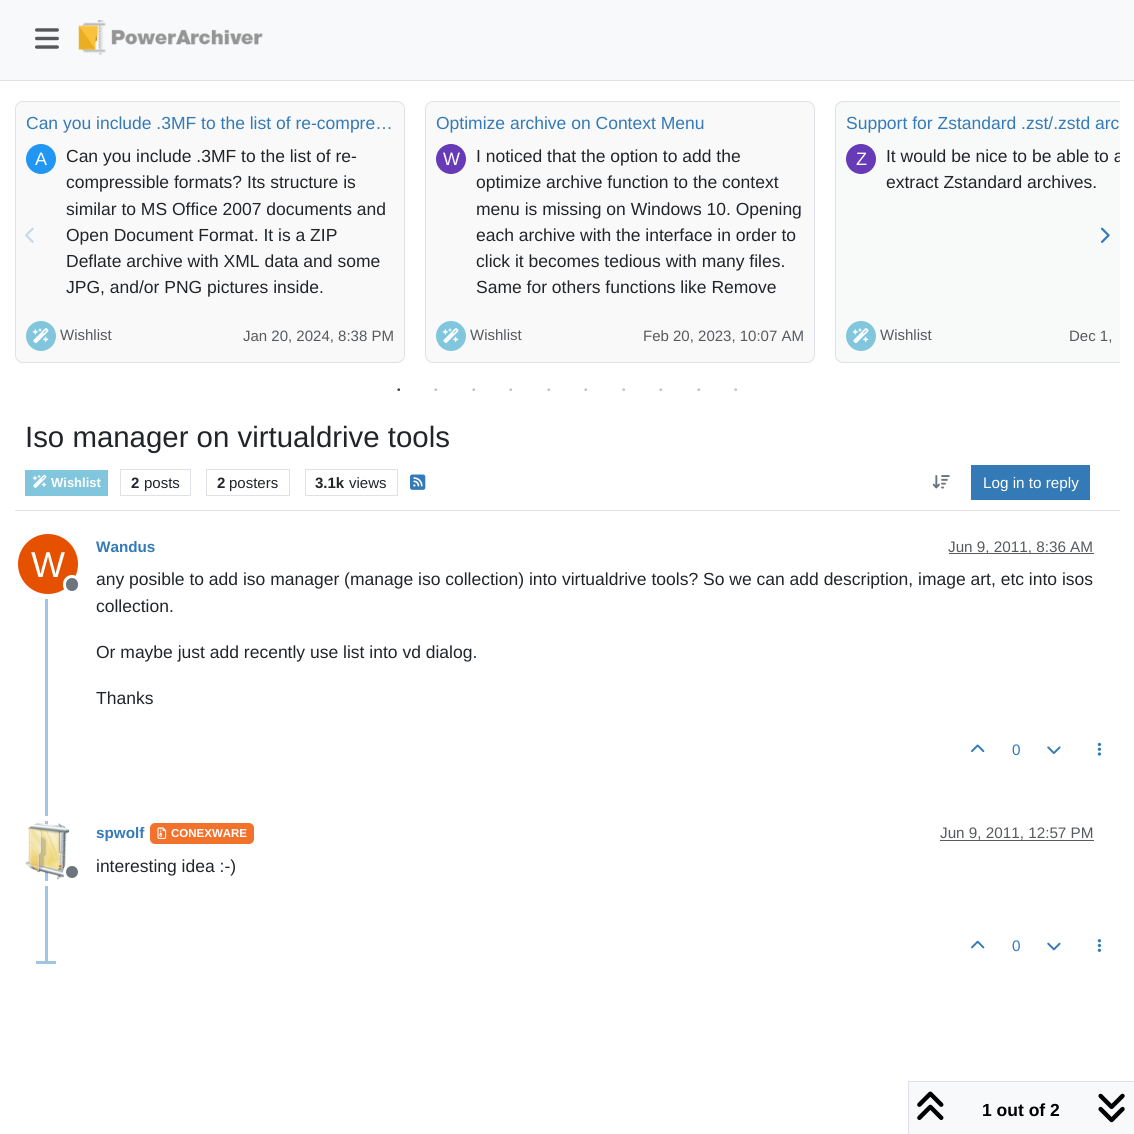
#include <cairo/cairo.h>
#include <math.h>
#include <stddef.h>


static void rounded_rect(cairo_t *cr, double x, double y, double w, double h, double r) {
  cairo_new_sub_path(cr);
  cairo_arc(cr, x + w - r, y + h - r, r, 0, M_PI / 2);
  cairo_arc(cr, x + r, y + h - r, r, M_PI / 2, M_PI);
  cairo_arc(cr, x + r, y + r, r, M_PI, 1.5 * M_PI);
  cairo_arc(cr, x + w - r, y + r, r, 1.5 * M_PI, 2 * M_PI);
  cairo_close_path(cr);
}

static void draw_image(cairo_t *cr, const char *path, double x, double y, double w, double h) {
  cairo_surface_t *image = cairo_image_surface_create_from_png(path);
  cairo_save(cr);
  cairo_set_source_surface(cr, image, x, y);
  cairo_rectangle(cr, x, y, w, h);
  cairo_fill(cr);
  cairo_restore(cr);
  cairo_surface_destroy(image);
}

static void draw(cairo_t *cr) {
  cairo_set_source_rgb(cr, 1, 1, 1);
  cairo_paint(cr);
  cairo_set_source_rgb(cr, 248 / 255.0, 249 / 255.0, 250 / 255.0);
  cairo_rectangle(cr, 0, 0, 1134, 80);
  cairo_fill(cr);
  cairo_set_source_rgb(cr, 222 / 255.0, 226 / 255.0, 230 / 255.0);
  cairo_rectangle(cr, 0, 80, 1134, 1);
  cairo_fill(cr);
  draw_image(cr, "images/1.png", 35, 28, 24, 21);
  draw_image(cr, "images/2.png", 78, 20, 185, 35);
  cairo_set_source_rgb(cr, 249 / 255.0, 249 / 255.0, 249 / 255.0);
  rounded_rect(cr, 15.5, 101.5, 389, 261, 7.5);
  cairo_fill_preserve(cr);
  cairo_set_source_rgb(cr, 222 / 255.0, 226 / 255.0, 230 / 255.0);
  cairo_set_line_width(cr, 1);
  cairo_stroke(cr);
  cairo_set_source_rgb(cr, 33 / 255.0, 150 / 255.0, 243 / 255.0);
  cairo_arc(cr, 41, 159, 15, 0, 2 * M_PI);
  cairo_fill(cr);
  cairo_set_source_rgb(cr, 129 / 255.0, 198 / 255.0, 221 / 255.0);
  cairo_arc(cr, 41, 336, 15, 0, 2 * M_PI);
  cairo_fill(cr);
  draw_image(cr, "images/3.png", 32, 328, 17, 16);
  cairo_set_source_rgb(cr, 249 / 255.0, 249 / 255.0, 249 / 255.0);
  rounded_rect(cr, 425.5, 101.5, 389, 261, 7.5);
  cairo_fill_preserve(cr);
  cairo_set_source_rgb(cr, 222 / 255.0, 226 / 255.0, 230 / 255.0);
  cairo_stroke(cr);
  cairo_set_source_rgb(cr, 103 / 255.0, 58 / 255.0, 183 / 255.0);
  cairo_arc(cr, 451, 159, 15, 0, 2 * M_PI);
  cairo_fill(cr);
  cairo_set_source_rgb(cr, 129 / 255.0, 198 / 255.0, 221 / 255.0);
  cairo_arc(cr, 451, 336, 15, 0, 2 * M_PI);
  cairo_fill(cr);
  draw_image(cr, "images/3.png", 442, 328, 17, 16);
  cairo_set_source_rgb(cr, 248 / 255.0, 249 / 255.0, 249 / 255.0);
  cairo_new_path(cr);
  cairo_move_to(cr, 843, 101);
  cairo_line_to(cr, 1120, 101);
  cairo_line_to(cr, 1120, 363);
  cairo_line_to(cr, 843, 363);
  cairo_curve_to(cr, 838.5, 363, 835, 359.5, 835, 355);
  cairo_line_to(cr, 835, 109);
  cairo_curve_to(cr, 835, 104.5, 838.5, 101, 843, 101);
  cairo_close_path(cr);
  cairo_fill(cr);
  cairo_save(cr);
  cairo_rectangle(cr, 15, 101, 1105, 272);
  cairo_clip(cr);
  rounded_rect(cr, 835.5, 101.5, 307, 261, 7.5);
  cairo_set_source_rgb(cr, 222 / 255.0, 226 / 255.0, 230 / 255.0);
  cairo_stroke(cr);
  cairo_restore(cr);
  cairo_set_source_rgb(cr, 103 / 255.0, 58 / 255.0, 183 / 255.0);
  cairo_arc(cr, 861, 159, 15, 0, 2 * M_PI);
  cairo_fill(cr);
  cairo_set_source_rgb(cr, 129 / 255.0, 198 / 255.0, 221 / 255.0);
  cairo_arc(cr, 861, 336, 15, 0, 2 * M_PI);
  cairo_fill(cr);
  draw_image(cr, "images/3.png", 852, 328, 17, 16);
  draw_image(cr, "images/4.png", 25, 227, 9, 16);
  draw_image(cr, "images/5.png", 1101, 227, 9, 16);
  cairo_set_source_rgb(cr, 222 / 255.0, 226 / 255.0, 230 / 255.0);
  cairo_rectangle(cr, 15, 510, 1105, 1);
  cairo_fill(cr);
  cairo_set_source_rgb(cr, 129 / 255.0, 198 / 255.0, 221 / 255.0);
  cairo_rectangle(cr, 25, 470, 83, 26);
  cairo_fill(cr);
  draw_image(cr, "images/6.png", 32, 474, 15, 14);
  cairo_rectangle(cr, 120.5, 469.5, 70, 26);
  cairo_set_source_rgb(cr, 222 / 255.0, 226 / 255.0, 230 / 255.0);
  cairo_stroke(cr);
  cairo_rectangle(cr, 206.5, 469.5, 83, 26);
  cairo_stroke(cr);
  cairo_rectangle(cr, 305.5, 469.5, 92, 26);
  cairo_stroke(cr);
  draw_image(cr, "images/7.png", 410, 474, 16, 16);
  draw_image(cr, "images/8.png", 932, 475, 18, 14);
  cairo_set_source_rgb(cr, 51 / 255.0, 122 / 255.0, 183 / 255.0);
  cairo_rectangle(cr, 971, 465, 119, 35);
  cairo_fill(cr);
  cairo_set_source_rgb(cr, 160 / 255.0, 196 / 255.0, 228 / 255.0);
  cairo_rectangle(cr, 45, 531, 3, 433);
  cairo_fill(cr);
  cairo_set_source_rgb(cr, 89 / 255.0, 92 / 255.0, 95 / 255.0);
  cairo_rectangle(cr, 949, 553, 145, 1);
  cairo_fill(cr);
  cairo_arc(cr, 48, 564, 32.5, 0, 2 * M_PI);
  cairo_set_source_rgb(cr, 1, 1, 1);
  cairo_set_line_width(cr, 5);
  cairo_stroke(cr);
  cairo_set_source_rgb(cr, 230 / 255.0, 81 / 255.0, 0);
  cairo_arc(cr, 48, 564, 30, 0, 2 * M_PI);
  cairo_fill(cr);
  draw_image(cr, "images/9.png", 971, 744, 14, 9);
  draw_image(cr, "images/10.png", 1047, 746, 14, 8);
  draw_image(cr, "images/11.png", 1097, 742, 5, 14);
  cairo_arc(cr, 48, 851, 32.5, 0, 2 * M_PI);
  cairo_set_source_rgb(cr, 1, 1, 1);
  cairo_stroke(cr);
  draw_image(cr, "images/12.png", 25, 823, 45, 57);
  cairo_set_source_rgb(cr, 108 / 255.0, 117 / 255.0, 125 / 255.0);
  cairo_arc(cr, 72, 872, 7.5, 0, 2 * M_PI);
  cairo_fill_preserve(cr);
  cairo_set_source_rgb(cr, 1, 1, 1);
  cairo_set_line_width(cr, 3);
  cairo_stroke(cr);
  cairo_set_source_rgb(cr, 242 / 255.0, 114 / 255.0, 44 / 255.0);
  rounded_rect(cr, 150, 823, 104, 21, 5);
  cairo_fill(cr);
  draw_image(cr, "images/13.png", 157, 827, 10, 12);
  cairo_set_source_rgb(cr, 89 / 255.0, 92 / 255.0, 95 / 255.0);
  cairo_rectangle(cr, 940, 840, 154, 1);
  cairo_fill(cr);
  draw_image(cr, "images/14.png", 971, 940, 14, 9);
  draw_image(cr, "images/15.png", 1047, 942, 14, 9);
  draw_image(cr, "images/16.png", 1097, 939, 5, 13);
  cairo_set_source_rgb(cr, 160 / 255.0, 196 / 255.0, 228 / 255.0);
  cairo_rectangle(cr, 36, 961, 20, 3);
  cairo_fill(cr);
  cairo_set_source_rgb(cr, 248 / 255.0, 249 / 255.0, 250 / 255.0);
  cairo_rectangle(cr, 908.5, 1081.5, 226, 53);
  cairo_fill_preserve(cr);
  cairo_set_source_rgb(cr, 222 / 255.0, 226 / 255.0, 230 / 255.0);
  cairo_set_line_width(cr, 1);
  cairo_stroke(cr);
  draw_image(cr, "images/17.png", 917, 1091, 27, 29);
  draw_image(cr, "images/18.png", 1098, 1093, 27, 30);
  cairo_select_font_face(cr, "Liberation Sans", CAIRO_FONT_SLANT_NORMAL, CAIRO_FONT_WEIGHT_NORMAL);
  cairo_set_font_size(cr, 17.5);
  cairo_set_source_rgb(cr, 51 / 255.0, 122 / 255.0, 183 / 255.0);
  cairo_move_to(cr, 26, 129);
  cairo_show_text(cr, "Can you include .3MF to the list of re-compre…");
  cairo_set_font_size(cr, 18);
  cairo_set_source_rgb(cr, 1, 1, 1);
  cairo_move_to(cr, 35, 165);
  cairo_show_text(cr, "A");
  cairo_set_font_size(cr, 17.5);
  cairo_set_source_rgb(cr, 33 / 255.0, 37 / 255.0, 41 / 255.0);
  cairo_move_to(cr, 66, 162);
  cairo_show_text(cr, "Can you include .3MF to the list of re-");
  cairo_move_to(cr, 66, 188);
  cairo_show_text(cr, "compressible formats? Its structure is");
  cairo_move_to(cr, 66, 215);
  cairo_show_text(cr, "similar to MS Office 2007 documents and");
  cairo_move_to(cr, 66, 241);
  cairo_show_text(cr, "Open Document Format. It is a ZIP");
  cairo_move_to(cr, 66, 267);
  cairo_show_text(cr, "Deflate archive with XML data and some");
  cairo_move_to(cr, 66, 293);
  cairo_show_text(cr, "JPG, and/or PNG pictures inside.");
  cairo_set_font_size(cr, 15);
  cairo_set_source_rgb(cr, 87 / 255.0, 90 / 255.0, 93 / 255.0);
  cairo_move_to(cr, 60, 340);
  cairo_show_text(cr, "Wishlist");
  cairo_move_to(cr, 243, 341);
  cairo_show_text(cr, "Jan 20, 2024, 8:38 PM");
  cairo_set_font_size(cr, 17.5);
  cairo_set_source_rgb(cr, 51 / 255.0, 122 / 255.0, 183 / 255.0);
  cairo_move_to(cr, 436, 129);
  cairo_show_text(cr, "Optimize archive on Context Menu");
  cairo_set_font_size(cr, 18);
  cairo_set_source_rgb(cr, 1, 1, 1);
  cairo_move_to(cr, 443, 165);
  cairo_show_text(cr, "W");
  cairo_set_font_size(cr, 17.5);
  cairo_set_source_rgb(cr, 33 / 255.0, 37 / 255.0, 41 / 255.0);
  cairo_move_to(cr, 476, 162);
  cairo_show_text(cr, "I noticed that the option to add the");
  cairo_move_to(cr, 476, 188);
  cairo_show_text(cr, "optimize archive function to the context");
  cairo_move_to(cr, 476, 215);
  cairo_show_text(cr, "menu is missing on Windows 10. Opening");
  cairo_move_to(cr, 476, 241);
  cairo_show_text(cr, "each archive with the interface in order to");
  cairo_move_to(cr, 476, 267);
  cairo_show_text(cr, "click it becomes tedious with many files.");
  cairo_move_to(cr, 476, 293);
  cairo_show_text(cr, "Same for others functions like Remove");
  cairo_set_font_size(cr, 15);
  cairo_set_source_rgb(cr, 87 / 255.0, 90 / 255.0, 93 / 255.0);
  cairo_move_to(cr, 470, 340);
  cairo_show_text(cr, "Wishlist");
  cairo_move_to(cr, 643, 341);
  cairo_show_text(cr, "Feb 20, 2023, 10:07 AM");
  cairo_set_font_size(cr, 17.5);
  cairo_set_source_rgb(cr, 51 / 255.0, 122 / 255.0, 183 / 255.0);
  cairo_move_to(cr, 846, 129);
  cairo_show_text(cr, "Support for Zstandard .zst/.zstd arc");
  cairo_set_font_size(cr, 18);
  cairo_set_source_rgb(cr, 1, 1, 1);
  cairo_move_to(cr, 856, 165);
  cairo_show_text(cr, "Z");
  cairo_save(cr);
  cairo_rectangle(cr, 846, 113, 274, 188);
  cairo_clip(cr);
  cairo_set_font_size(cr, 17.5);
  cairo_set_source_rgb(cr, 33 / 255.0, 37 / 255.0, 41 / 255.0);
  cairo_move_to(cr, 886, 162);
  cairo_show_text(cr, "It would be nice to be able to a");
  cairo_restore(cr);
  cairo_set_font_size(cr, 17.5);
  cairo_set_source_rgb(cr, 33 / 255.0, 37 / 255.0, 41 / 255.0);
  cairo_move_to(cr, 886, 188);
  cairo_show_text(cr, "extract Zstandard archives.");
  cairo_set_font_size(cr, 15);
  cairo_set_source_rgb(cr, 87 / 255.0, 90 / 255.0, 93 / 255.0);
  cairo_move_to(cr, 880, 340);
  cairo_show_text(cr, "Wishlist");
  cairo_move_to(cr, 1069, 341);
  cairo_show_text(cr, "Dec 1,");
  cairo_set_font_size(cr, 10);
  cairo_set_source_rgb(cr, 64 / 255.0, 64 / 255.0, 64 / 255.0);
  cairo_move_to(cr, 397, 393);
  cairo_show_text(cr, "•");
  cairo_set_source_rgb(cr, 191 / 255.0, 191 / 255.0, 191 / 255.0);
  cairo_move_to(cr, 434, 393);
  cairo_show_text(cr, "•");
  cairo_move_to(cr, 472, 393);
  cairo_show_text(cr, "•");
  cairo_move_to(cr, 509, 393);
  cairo_show_text(cr, "•");
  cairo_move_to(cr, 547, 393);
  cairo_show_text(cr, "•");
  cairo_move_to(cr, 584, 393);
  cairo_show_text(cr, "•");
  cairo_move_to(cr, 622, 393);
  cairo_show_text(cr, "•");
  cairo_move_to(cr, 659, 393);
  cairo_show_text(cr, "•");
  cairo_move_to(cr, 697, 393);
  cairo_show_text(cr, "•");
  cairo_move_to(cr, 734, 393);
  cairo_show_text(cr, "•");
  cairo_set_font_size(cr, 29.4);
  cairo_set_source_rgb(cr, 33 / 255.0, 37 / 255.0, 41 / 255.0);
  cairo_move_to(cr, 25, 447);
  cairo_show_text(cr, "Iso manager on virtualdrive tools");
  cairo_select_font_face(cr, "Liberation Sans", CAIRO_FONT_SLANT_NORMAL, CAIRO_FONT_WEIGHT_BOLD);
  cairo_set_font_size(cr, 13);
  cairo_set_source_rgb(cr, 1, 1, 1);
  cairo_move_to(cr, 51, 487);
  cairo_show_text(cr, "Wishlist");
  cairo_set_font_size(cr, 15);
  cairo_set_source_rgb(cr, 33 / 255.0, 37 / 255.0, 41 / 255.0);
  cairo_move_to(cr, 131, 488);
  cairo_show_text(cr, "2");
  cairo_select_font_face(cr, "Liberation Sans", CAIRO_FONT_SLANT_NORMAL, CAIRO_FONT_WEIGHT_NORMAL);
  cairo_move_to(cr, 144, 488);
  cairo_show_text(cr, "posts");
  cairo_select_font_face(cr, "Liberation Sans", CAIRO_FONT_SLANT_NORMAL, CAIRO_FONT_WEIGHT_BOLD);
  cairo_move_to(cr, 217, 488);
  cairo_show_text(cr, "2");
  cairo_select_font_face(cr, "Liberation Sans", CAIRO_FONT_SLANT_NORMAL, CAIRO_FONT_WEIGHT_NORMAL);
  cairo_move_to(cr, 229, 488);
  cairo_show_text(cr, "posters");
  cairo_select_font_face(cr, "Liberation Sans", CAIRO_FONT_SLANT_NORMAL, CAIRO_FONT_WEIGHT_BOLD);
  cairo_move_to(cr, 315, 488);
  cairo_show_text(cr, "3.1k");
  cairo_select_font_face(cr, "Liberation Sans", CAIRO_FONT_SLANT_NORMAL, CAIRO_FONT_WEIGHT_NORMAL);
  cairo_move_to(cr, 349, 488);
  cairo_show_text(cr, "views");
  cairo_set_font_size(cr, 15.25);
  cairo_set_source_rgb(cr, 1, 1, 1);
  cairo_move_to(cr, 983, 488);
  cairo_show_text(cr, "Log in to reply");
  cairo_select_font_face(cr, "Liberation Sans", CAIRO_FONT_SLANT_NORMAL, CAIRO_FONT_WEIGHT_BOLD);
  cairo_set_source_rgb(cr, 51 / 255.0, 122 / 255.0, 183 / 255.0);
  cairo_move_to(cr, 96, 552);
  cairo_show_text(cr, "Wandus");
  cairo_select_font_face(cr, "Liberation Sans", CAIRO_FONT_SLANT_NORMAL, CAIRO_FONT_WEIGHT_NORMAL);
  cairo_set_source_rgb(cr, 87 / 255.0, 90 / 255.0, 93 / 255.0);
  cairo_move_to(cr, 948, 552);
  cairo_show_text(cr, "Jun 9, 2011, 8:36 AM");
  cairo_set_font_size(cr, 36);
  cairo_set_source_rgb(cr, 1, 1, 1);
  cairo_move_to(cr, 31, 577);
  cairo_show_text(cr, "W");
  cairo_set_source_rgb(cr, 108 / 255.0, 117 / 255.0, 125 / 255.0);
  rounded_rect(cr, 64.5, 576.5, 15, 16, 7.5);
  cairo_fill_preserve(cr);
  cairo_set_source_rgb(cr, 1, 1, 1);
  cairo_set_line_width(cr, 3);
  cairo_stroke(cr);
  cairo_set_font_size(cr, 17.5);
  cairo_set_source_rgb(cr, 33 / 255.0, 37 / 255.0, 41 / 255.0);
  cairo_move_to(cr, 96, 585);
  cairo_show_text(cr, "any posible to add iso manager (manage iso collection) into virtualdrive tools? So we can add description, image art, etc into isos");
  cairo_move_to(cr, 96, 612);
  cairo_show_text(cr, "collection.");
  cairo_move_to(cr, 96, 658);
  cairo_show_text(cr, "Or maybe just add recently use list into vd dialog.");
  cairo_move_to(cr, 96, 704);
  cairo_show_text(cr, "Thanks");
  cairo_set_font_size(cr, 15.25);
  cairo_set_source_rgb(cr, 51 / 255.0, 122 / 255.0, 183 / 255.0);
  cairo_move_to(cr, 1012, 755);
  cairo_show_text(cr, "0");
  cairo_select_font_face(cr, "Liberation Sans", CAIRO_FONT_SLANT_NORMAL, CAIRO_FONT_WEIGHT_BOLD);
  cairo_move_to(cr, 96, 838);
  cairo_show_text(cr, "spwolf");
  cairo_set_font_size(cr, 11.5);
  cairo_set_source_rgb(cr, 1, 1, 1);
  cairo_move_to(cr, 171, 837);
  cairo_show_text(cr, "CONEXWARE");
  cairo_select_font_face(cr, "Liberation Sans", CAIRO_FONT_SLANT_NORMAL, CAIRO_FONT_WEIGHT_NORMAL);
  cairo_set_font_size(cr, 15.25);
  cairo_set_source_rgb(cr, 87 / 255.0, 90 / 255.0, 93 / 255.0);
  cairo_move_to(cr, 940, 838);
  cairo_show_text(cr, "Jun 9, 2011, 12:57 PM");
  cairo_set_font_size(cr, 17.5);
  cairo_set_source_rgb(cr, 33 / 255.0, 37 / 255.0, 41 / 255.0);
  cairo_move_to(cr, 96, 872);
  cairo_show_text(cr, "interesting idea :-)");
  cairo_set_font_size(cr, 15.25);
  cairo_set_source_rgb(cr, 51 / 255.0, 122 / 255.0, 183 / 255.0);
  cairo_move_to(cr, 1012, 951);
  cairo_show_text(cr, "0");
  cairo_select_font_face(cr, "Liberation Sans", CAIRO_FONT_SLANT_NORMAL, CAIRO_FONT_WEIGHT_BOLD);
  cairo_set_font_size(cr, 17.5);
  cairo_set_source_rgb(cr, 0, 0, 0);
  cairo_move_to(cr, 982, 1116);
  cairo_show_text(cr, "1 out of 2");
}

int main(void) {
  cairo_surface_t *surface = cairo_image_surface_create(CAIRO_FORMAT_RGB24, 1134, 1134);
  cairo_t *cr = cairo_create(surface);
  cairo_font_options_t *options = cairo_font_options_create();
  cairo_font_options_set_hint_metrics(options, CAIRO_HINT_METRICS_OFF);
  cairo_font_options_set_hint_style(options, CAIRO_HINT_STYLE_NONE);
  cairo_set_font_options(cr, options);
  cairo_set_miter_limit(cr, 4);
  draw(cr);
  cairo_surface_write_to_png(surface, "out.png");
  cairo_font_options_destroy(options);
  cairo_destroy(cr);
  cairo_surface_destroy(surface);
  return 0;
}
